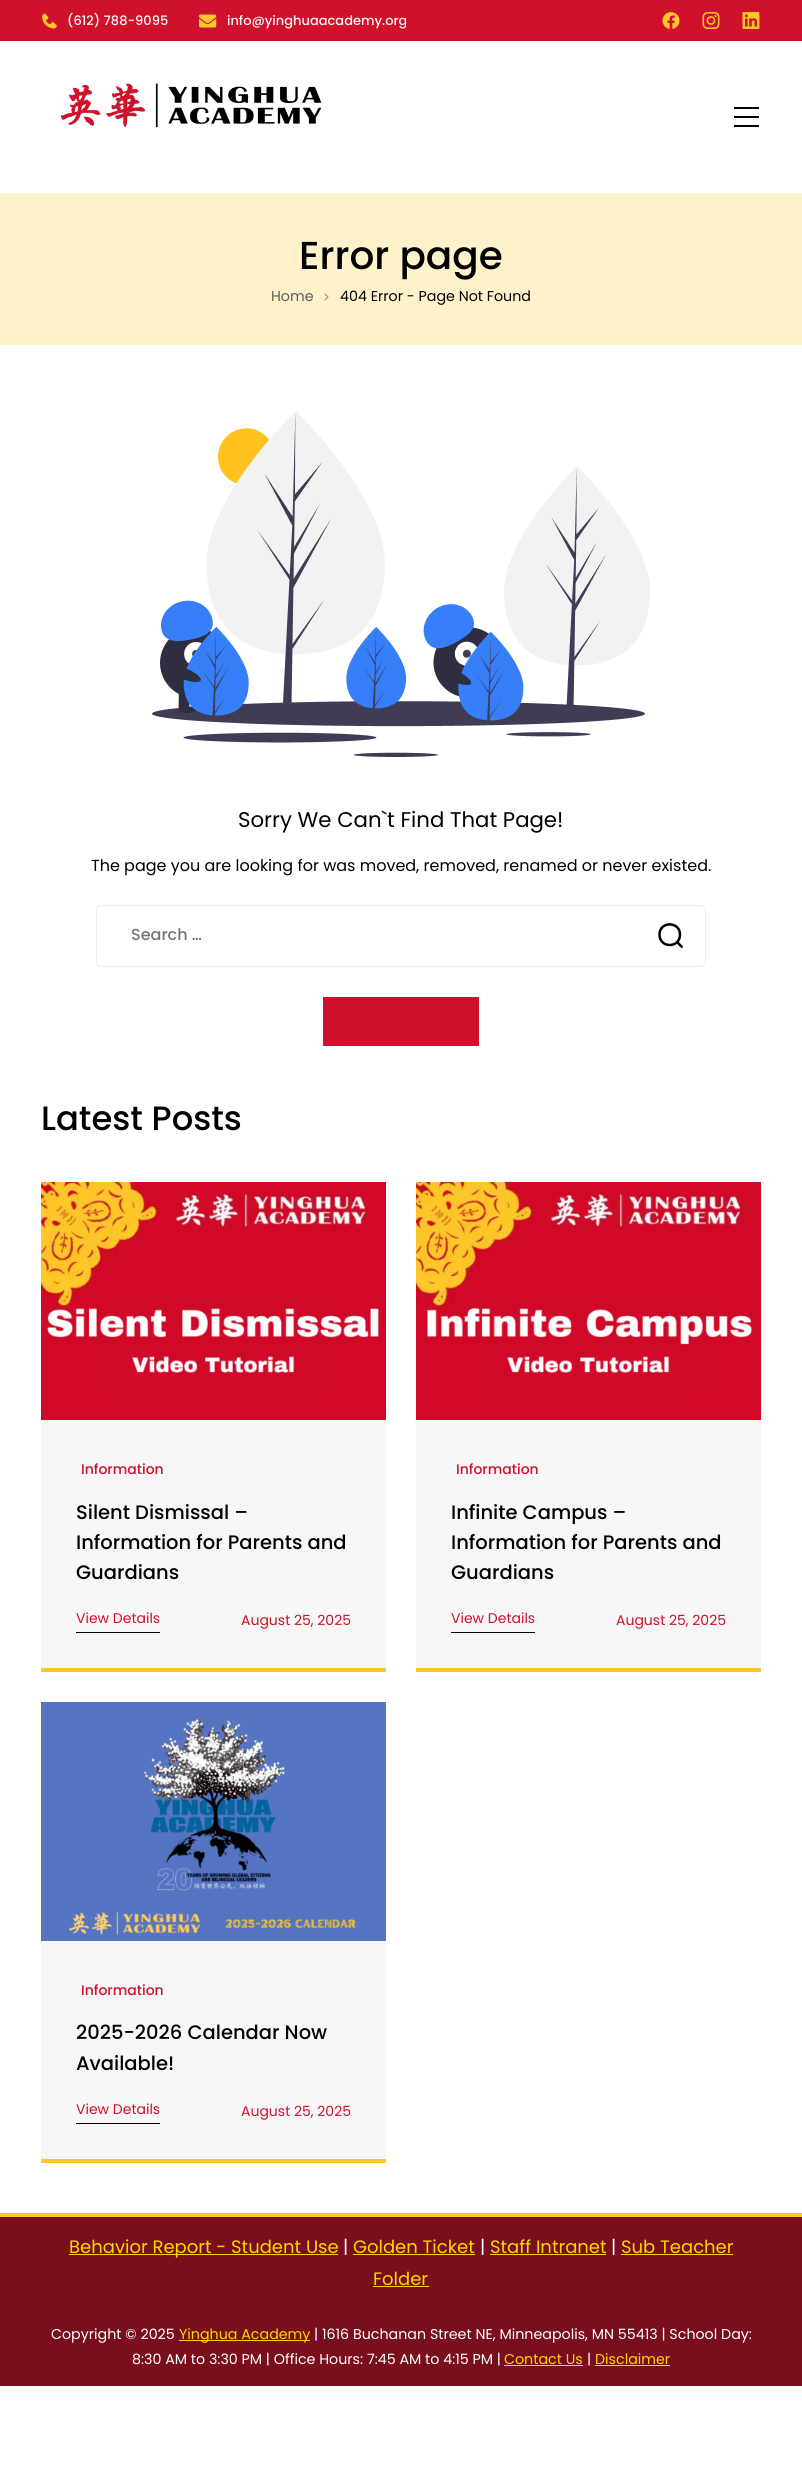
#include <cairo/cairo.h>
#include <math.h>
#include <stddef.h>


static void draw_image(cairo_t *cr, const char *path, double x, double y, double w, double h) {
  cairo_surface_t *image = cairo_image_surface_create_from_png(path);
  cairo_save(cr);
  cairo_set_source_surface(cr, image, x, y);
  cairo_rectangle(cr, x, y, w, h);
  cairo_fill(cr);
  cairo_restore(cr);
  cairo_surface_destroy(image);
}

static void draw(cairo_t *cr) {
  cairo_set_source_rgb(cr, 1, 1, 1);
  cairo_paint(cr);
  cairo_set_source_rgb(cr, 207 / 255.0, 17 / 255.0, 43 / 255.0);
  cairo_rectangle(cr, 0, 0, 802, 41);
  cairo_fill(cr);
  draw_image(cr, "images/1.png", 41, 13, 16, 16);
  draw_image(cr, "images/2.png", 198, 14, 19, 14);
  draw_image(cr, "images/3.png", 662, 12, 18, 17);
  draw_image(cr, "images/4.png", 702, 12, 18, 17);
  draw_image(cr, "images/5.png", 742, 12, 18, 17);
  draw_image(cr, "images/6.png", 61, 83, 260, 45);
  cairo_set_source_rgb(cr, 0, 0, 0);
  cairo_rectangle(cr, 734, 107, 25, 2);
  cairo_fill(cr);
  cairo_rectangle(cr, 734, 116, 25, 2);
  cairo_fill(cr);
  cairo_rectangle(cr, 734, 125, 25, 2);
  cairo_fill(cr);
  cairo_set_source_rgb(cr, 1, 241 / 255.0, 201 / 255.0);
  cairo_rectangle(cr, 0, 193, 802, 152);
  cairo_fill(cr);
  cairo_new_path(cr);
  cairo_move_to(cr, 325, 294);
  cairo_line_to(cr, 328, 297);
  cairo_line_to(cr, 325, 300);
  cairo_set_source_rgb(cr, 134 / 255.0, 134 / 255.0, 134 / 255.0);
  cairo_set_line_width(cr, 1);
  cairo_set_line_cap(cr, CAIRO_LINE_CAP_ROUND);
  cairo_set_line_join(cr, CAIRO_LINE_JOIN_ROUND);
  cairo_stroke(cr);
  draw_image(cr, "images/7.png", 152, 411, 498, 346);
  cairo_set_source_rgb(cr, 239 / 255.0, 239 / 255.0, 239 / 255.0);
  cairo_set_fill_rule(cr, CAIRO_FILL_RULE_EVEN_ODD);
  cairo_new_path(cr);
  cairo_move_to(cr, 101, 905);
  cairo_line_to(cr, 636, 905);
  cairo_line_to(cr, 636, 967);
  cairo_line_to(cr, 101, 967);
  cairo_curve_to(cr, 98, 967, 96, 965, 96, 962);
  cairo_line_to(cr, 96, 910);
  cairo_curve_to(cr, 96, 907, 98, 905, 101, 905);
  cairo_close_path(cr);
  cairo_move_to(cr, 101, 906);
  cairo_line_to(cr, 636, 906);
  cairo_line_to(cr, 636, 966);
  cairo_line_to(cr, 101, 966);
  cairo_curve_to(cr, 99, 966, 97, 964, 97, 962);
  cairo_line_to(cr, 97, 910);
  cairo_curve_to(cr, 97, 908, 99, 906, 101, 906);
  cairo_close_path(cr);
  cairo_fill(cr);
  cairo_new_path(cr);
  cairo_move_to(cr, 682.5, 947.5);
  cairo_line_to(cr, 677, 942);
  cairo_close_path(cr);
  cairo_move_to(cr, 680, 934.5);
  cairo_curve_to(cr, 680, 948.5, 659.5, 948.5, 659.5, 934.5);
  cairo_curve_to(cr, 659.5, 921, 680, 921, 680, 934.5);
  cairo_close_path(cr);
  cairo_set_source_rgb(cr, 0, 0, 0);
  cairo_set_line_width(cr, 2.5);
  cairo_set_line_join(cr, CAIRO_LINE_JOIN_MITER);
  cairo_stroke(cr);
  cairo_set_source_rgb(cr, 239 / 255.0, 239 / 255.0, 239 / 255.0);
  cairo_new_path(cr);
  cairo_move_to(cr, 636, 905);
  cairo_line_to(cr, 701, 905);
  cairo_curve_to(cr, 704, 905, 706, 907, 706, 910);
  cairo_line_to(cr, 706, 962);
  cairo_curve_to(cr, 706, 965, 704, 967, 701, 967);
  cairo_line_to(cr, 636, 967);
  cairo_close_path(cr);
  cairo_move_to(cr, 636, 906);
  cairo_line_to(cr, 701, 906);
  cairo_curve_to(cr, 703, 906, 705, 908, 705, 910);
  cairo_line_to(cr, 705, 962);
  cairo_curve_to(cr, 705, 964, 703, 966, 701, 966);
  cairo_line_to(cr, 636, 966);
  cairo_close_path(cr);
  cairo_fill(cr);
  cairo_set_source_rgb(cr, 207 / 255.0, 17 / 255.0, 43 / 255.0);
  cairo_rectangle(cr, 323, 997, 156, 49);
  cairo_fill(cr);
  cairo_set_source_rgb(cr, 247 / 255.0, 247 / 255.0, 247 / 255.0);
  cairo_rectangle(cr, 41, 1420, 345, 248);
  cairo_fill(cr);
  cairo_set_source_rgb(cr, 1, 199 / 255.0, 44 / 255.0);
  cairo_rectangle(cr, 41, 1668, 345, 4);
  cairo_fill(cr);
  draw_image(cr, "images/8.png", 41, 1182, 345, 238);
  cairo_set_source_rgb(cr, 0, 0, 0);
  cairo_rectangle(cr, 76, 1632, 84, 1);
  cairo_fill(cr);
  cairo_set_source_rgb(cr, 247 / 255.0, 247 / 255.0, 247 / 255.0);
  cairo_rectangle(cr, 416, 1420, 345, 248);
  cairo_fill(cr);
  cairo_set_source_rgb(cr, 1, 199 / 255.0, 44 / 255.0);
  cairo_rectangle(cr, 416, 1668, 345, 4);
  cairo_fill(cr);
  draw_image(cr, "images/9.png", 416, 1182, 345, 238);
  cairo_set_source_rgb(cr, 0, 0, 0);
  cairo_rectangle(cr, 451, 1632, 84, 1);
  cairo_fill(cr);
  cairo_set_source_rgb(cr, 247 / 255.0, 247 / 255.0, 247 / 255.0);
  cairo_rectangle(cr, 41, 1941, 345, 218);
  cairo_fill(cr);
  cairo_set_source_rgb(cr, 1, 199 / 255.0, 44 / 255.0);
  cairo_rectangle(cr, 41, 2159, 345, 4);
  cairo_fill(cr);
  draw_image(cr, "images/10.png", 41, 1702, 345, 239);
  cairo_set_source_rgb(cr, 0, 0, 0);
  cairo_rectangle(cr, 76, 2123, 84, 1);
  cairo_fill(cr);
  cairo_set_source_rgb(cr, 1, 199 / 255.0, 44 / 255.0);
  cairo_rectangle(cr, 0, 2213, 802, 4);
  cairo_fill(cr);
  cairo_set_source_rgb(cr, 121 / 255.0, 14 / 255.0, 29 / 255.0);
  cairo_rectangle(cr, 0, 2217, 802, 169);
  cairo_fill(cr);
  cairo_set_source_rgb(cr, 1, 215 / 255.0, 0);
  cairo_rectangle(cr, 69, 2254, 269, 1);
  cairo_fill(cr);
  cairo_rectangle(cr, 353, 2254, 122, 1);
  cairo_fill(cr);
  cairo_rectangle(cr, 490, 2254, 116, 1);
  cairo_fill(cr);
  cairo_rectangle(cr, 621, 2254, 112, 1);
  cairo_fill(cr);
  cairo_rectangle(cr, 373, 2286, 56, 1);
  cairo_fill(cr);
  cairo_rectangle(cr, 179, 2340, 131, 1);
  cairo_fill(cr);
  cairo_rectangle(cr, 504, 2365, 79, 1);
  cairo_fill(cr);
  cairo_rectangle(cr, 595, 2365, 75, 1);
  cairo_fill(cr);
  cairo_select_font_face(cr, "Poppins Medium", CAIRO_FONT_SLANT_NORMAL, CAIRO_FONT_WEIGHT_NORMAL);
  cairo_set_font_size(cr, 13);
  cairo_set_source_rgb(cr, 247 / 255.0, 247 / 255.0, 247 / 255.0);
  cairo_move_to(cr, 67, 25);
  cairo_show_text(cr, "(612) 788-9095");
  cairo_move_to(cr, 227, 25);
  cairo_show_text(cr, "info@yinghuaacademy.org");
  cairo_set_font_size(cr, 39);
  cairo_set_source_rgb(cr, 0, 0, 0);
  cairo_move_to(cr, 299, 269);
  cairo_show_text(cr, "Error page");
  cairo_select_font_face(cr, "Poppins", CAIRO_FONT_SLANT_NORMAL, CAIRO_FONT_WEIGHT_NORMAL);
  cairo_set_font_size(cr, 14.25);
  cairo_set_source_rgb(cr, 92 / 255.0, 92 / 255.0, 92 / 255.0);
  cairo_move_to(cr, 271, 301);
  cairo_show_text(cr, "Home");
  cairo_set_source_rgb(cr, 0, 0, 0);
  cairo_move_to(cr, 340, 301);
  cairo_show_text(cr, "404 Error - Page Not Found");
  cairo_set_font_size(cr, 21.25);
  cairo_move_to(cr, 238, 827);
  cairo_show_text(cr, "Sorry We Can`t Find That Page!");
  cairo_set_font_size(cr, 16);
  cairo_move_to(cr, 91, 871);
  cairo_show_text(cr, "The page you are looking for was moved, removed, renamed or never existed.");
  cairo_select_font_face(cr, "Poppins Medium", CAIRO_FONT_SLANT_NORMAL, CAIRO_FONT_WEIGHT_NORMAL);
  cairo_set_source_rgb(cr, 117 / 255.0, 117 / 255.0, 117 / 255.0);
  cairo_move_to(cr, 131, 940);
  cairo_show_text(cr, "Search …");
  cairo_set_font_size(cr, 33.75);
  cairo_set_source_rgb(cr, 0, 0, 0);
  cairo_move_to(cr, 41, 1130);
  cairo_show_text(cr, "Latest Posts");
  cairo_set_font_size(cr, 14);
  cairo_set_source_rgb(cr, 207 / 255.0, 17 / 255.0, 43 / 255.0);
  cairo_move_to(cr, 81, 1474);
  cairo_show_text(cr, "Information");
  cairo_set_font_size(cr, 19.5);
  cairo_set_source_rgb(cr, 0, 0, 0);
  cairo_move_to(cr, 76, 1519);
  cairo_show_text(cr, "Silent Dismissal –");
  cairo_move_to(cr, 76, 1549);
  cairo_show_text(cr, "Information for Parents and");
  cairo_move_to(cr, 76, 1579);
  cairo_show_text(cr, "Guardians");
  cairo_select_font_face(cr, "Poppins", CAIRO_FONT_SLANT_NORMAL, CAIRO_FONT_WEIGHT_NORMAL);
  cairo_set_font_size(cr, 14);
  cairo_set_source_rgb(cr, 207 / 255.0, 17 / 255.0, 43 / 255.0);
  cairo_move_to(cr, 76, 1623);
  cairo_show_text(cr, "View Details");
  cairo_move_to(cr, 241, 1625);
  cairo_show_text(cr, "August 25, 2025");
  cairo_select_font_face(cr, "Poppins Medium", CAIRO_FONT_SLANT_NORMAL, CAIRO_FONT_WEIGHT_NORMAL);
  cairo_move_to(cr, 456, 1474);
  cairo_show_text(cr, "Information");
  cairo_set_font_size(cr, 19.5);
  cairo_set_source_rgb(cr, 0, 0, 0);
  cairo_move_to(cr, 451, 1519);
  cairo_show_text(cr, "Infinite Campus –");
  cairo_move_to(cr, 451, 1549);
  cairo_show_text(cr, "Information for Parents and");
  cairo_move_to(cr, 451, 1579);
  cairo_show_text(cr, "Guardians");
  cairo_select_font_face(cr, "Poppins", CAIRO_FONT_SLANT_NORMAL, CAIRO_FONT_WEIGHT_NORMAL);
  cairo_set_font_size(cr, 14);
  cairo_set_source_rgb(cr, 207 / 255.0, 17 / 255.0, 43 / 255.0);
  cairo_move_to(cr, 451, 1623);
  cairo_show_text(cr, "View Details");
  cairo_move_to(cr, 616, 1625);
  cairo_show_text(cr, "August 25, 2025");
  cairo_select_font_face(cr, "Poppins Medium", CAIRO_FONT_SLANT_NORMAL, CAIRO_FONT_WEIGHT_NORMAL);
  cairo_move_to(cr, 81, 1995);
  cairo_show_text(cr, "Information");
  cairo_set_font_size(cr, 19.5);
  cairo_set_source_rgb(cr, 0, 0, 0);
  cairo_move_to(cr, 76, 2039);
  cairo_show_text(cr, "2025-2026 Calendar Now");
  cairo_move_to(cr, 76, 2070);
  cairo_show_text(cr, "Available!");
  cairo_select_font_face(cr, "Poppins", CAIRO_FONT_SLANT_NORMAL, CAIRO_FONT_WEIGHT_NORMAL);
  cairo_set_font_size(cr, 14);
  cairo_set_source_rgb(cr, 207 / 255.0, 17 / 255.0, 43 / 255.0);
  cairo_move_to(cr, 76, 2114);
  cairo_show_text(cr, "View Details");
  cairo_move_to(cr, 241, 2116);
  cairo_show_text(cr, "August 25, 2025");
  cairo_set_font_size(cr, 18);
  cairo_set_source_rgb(cr, 1, 215 / 255.0, 0);
  cairo_move_to(cr, 69, 2253);
  cairo_show_text(cr, "Behavior Report - Student Use");
  cairo_set_source_rgb(cr, 1, 1, 1);
  cairo_move_to(cr, 343, 2253);
  cairo_show_text(cr, "|");
  cairo_set_source_rgb(cr, 1, 215 / 255.0, 0);
  cairo_move_to(cr, 353, 2253);
  cairo_show_text(cr, "Golden Ticket");
  cairo_set_source_rgb(cr, 1, 1, 1);
  cairo_move_to(cr, 480, 2253);
  cairo_show_text(cr, "|");
  cairo_set_source_rgb(cr, 1, 215 / 255.0, 0);
  cairo_move_to(cr, 490, 2253);
  cairo_show_text(cr, "Staff Intranet");
  cairo_set_source_rgb(cr, 1, 1, 1);
  cairo_move_to(cr, 611, 2253);
  cairo_show_text(cr, "|");
  cairo_set_source_rgb(cr, 1, 215 / 255.0, 0);
  cairo_move_to(cr, 621, 2253);
  cairo_show_text(cr, "Sub Teacher");
  cairo_move_to(cr, 373, 2285);
  cairo_show_text(cr, "Folder");
  cairo_set_font_size(cr, 14.25);
  cairo_set_source_rgb(cr, 1, 1, 1);
  cairo_move_to(cr, 51, 2339);
  cairo_show_text(cr, "Copyright © 2025");
  cairo_set_source_rgb(cr, 1, 215 / 255.0, 0);
  cairo_move_to(cr, 179, 2339);
  cairo_show_text(cr, "Yinghua Academy");
  cairo_set_source_rgb(cr, 1, 1, 1);
  cairo_move_to(cr, 314, 2339);
  cairo_show_text(cr, "| 1616 Buchanan Street NE, Minneapolis, MN 55413 | School Day:");
  cairo_move_to(cr, 132, 2364);
  cairo_show_text(cr, "8:30 AM to 3:30 PM | Office Hours: 7:45 AM to 4:15 PM |");
  cairo_set_source_rgb(cr, 1, 215 / 255.0, 0);
  cairo_move_to(cr, 504, 2364);
  cairo_show_text(cr, "Contact Us");
  cairo_set_source_rgb(cr, 1, 1, 1);
  cairo_move_to(cr, 587, 2364);
  cairo_show_text(cr, "|");
  cairo_set_source_rgb(cr, 1, 215 / 255.0, 0);
  cairo_move_to(cr, 595, 2364);
  cairo_show_text(cr, "Disclaimer");
}

int main(void) {
  cairo_surface_t *surface = cairo_image_surface_create(CAIRO_FORMAT_RGB24, 802, 2477);
  cairo_t *cr = cairo_create(surface);
  cairo_font_options_t *options = cairo_font_options_create();
  cairo_font_options_set_hint_metrics(options, CAIRO_HINT_METRICS_OFF);
  cairo_font_options_set_hint_style(options, CAIRO_HINT_STYLE_NONE);
  cairo_set_font_options(cr, options);
  cairo_set_miter_limit(cr, 4);
  draw(cr);
  cairo_surface_write_to_png(surface, "out.png");
  cairo_font_options_destroy(options);
  cairo_destroy(cr);
  cairo_surface_destroy(surface);
  return 0;
}
